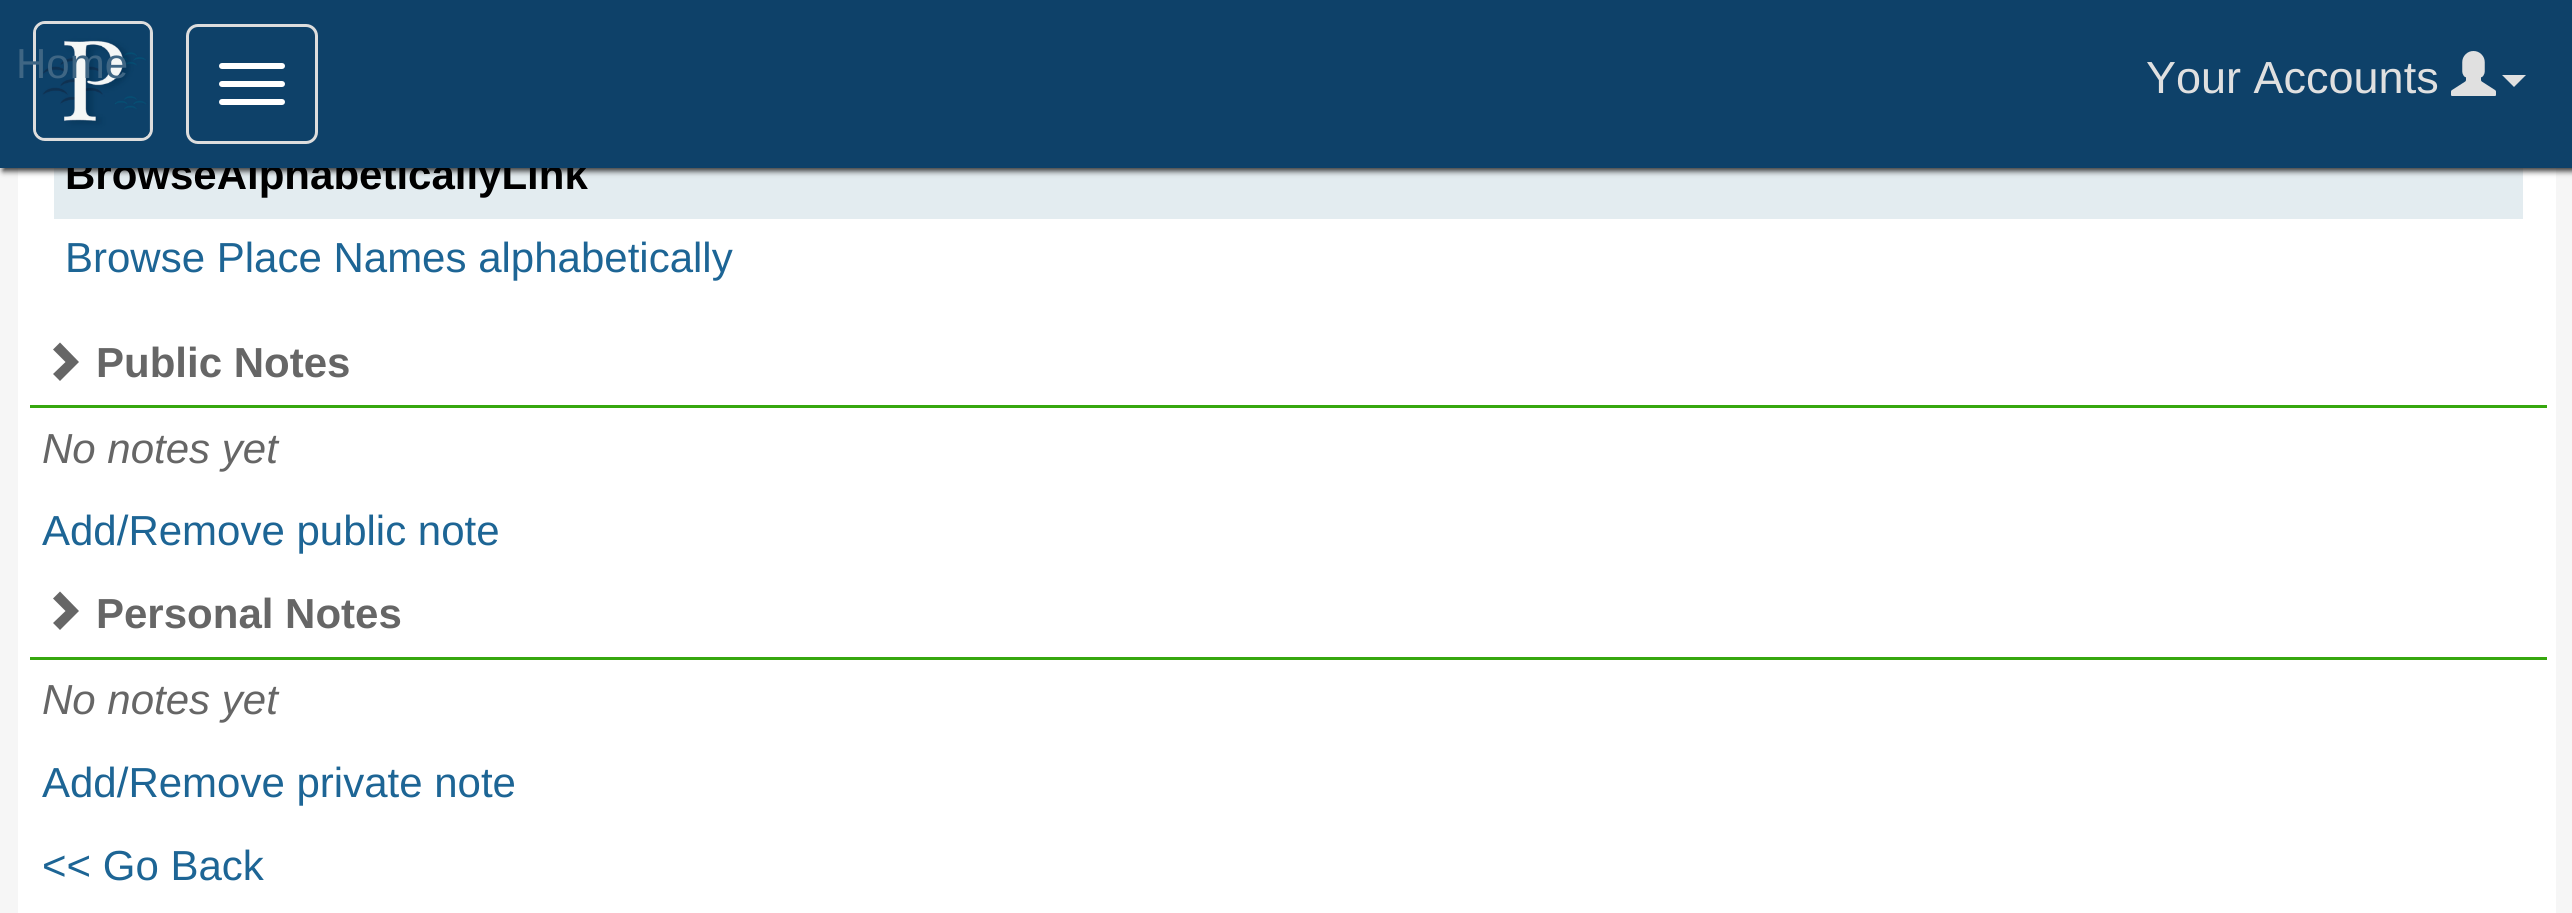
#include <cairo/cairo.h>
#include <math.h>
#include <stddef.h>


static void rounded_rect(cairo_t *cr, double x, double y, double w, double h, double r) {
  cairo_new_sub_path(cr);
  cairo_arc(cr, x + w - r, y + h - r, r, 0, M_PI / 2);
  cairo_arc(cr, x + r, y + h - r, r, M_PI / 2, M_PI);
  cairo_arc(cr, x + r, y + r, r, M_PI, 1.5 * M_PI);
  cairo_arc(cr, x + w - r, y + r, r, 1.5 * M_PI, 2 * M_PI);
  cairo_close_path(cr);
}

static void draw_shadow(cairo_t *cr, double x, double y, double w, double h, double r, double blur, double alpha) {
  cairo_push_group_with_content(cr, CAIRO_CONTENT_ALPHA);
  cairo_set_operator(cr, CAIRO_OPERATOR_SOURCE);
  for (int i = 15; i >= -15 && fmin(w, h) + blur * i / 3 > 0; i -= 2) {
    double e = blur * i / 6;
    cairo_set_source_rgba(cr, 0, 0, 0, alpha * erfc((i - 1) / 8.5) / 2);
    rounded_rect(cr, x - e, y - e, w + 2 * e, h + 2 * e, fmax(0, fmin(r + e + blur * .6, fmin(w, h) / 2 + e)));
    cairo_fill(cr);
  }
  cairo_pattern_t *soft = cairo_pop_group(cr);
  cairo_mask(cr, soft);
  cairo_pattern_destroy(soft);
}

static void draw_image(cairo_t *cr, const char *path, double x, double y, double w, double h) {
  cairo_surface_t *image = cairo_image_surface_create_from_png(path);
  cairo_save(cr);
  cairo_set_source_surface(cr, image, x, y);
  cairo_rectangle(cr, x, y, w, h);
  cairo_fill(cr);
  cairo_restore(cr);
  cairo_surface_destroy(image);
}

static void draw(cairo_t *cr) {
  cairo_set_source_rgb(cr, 246 / 255.0, 246 / 255.0, 246 / 255.0);
  cairo_paint(cr);
  cairo_set_source_rgb(cr, 1, 1, 1);
  cairo_rectangle(cr, 18, 168, 2538, 745);
  cairo_fill(cr);
  cairo_set_source_rgb(cr, 227 / 255.0, 236 / 255.0, 240 / 255.0);
  cairo_rectangle(cr, 54, 168, 2469, 51);
  cairo_fill(cr);
  cairo_set_source_rgb(cr, 51 / 255.0, 51 / 255.0, 51 / 255.0);
  draw_shadow(cr, 3, 3, 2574, 168, 0, 3, 1);
  cairo_set_source_rgb(cr, 54 / 255.0, 167 / 255.0, 14 / 255.0);
  cairo_rectangle(cr, 30, 405, 2517, 3);
  cairo_fill(cr);
  cairo_set_source_rgb(cr, 102 / 255.0, 102 / 255.0, 102 / 255.0);
  cairo_new_path(cr);
  cairo_move_to(cr, 79, 362);
  cairo_line_to(cr, 60, 381);
  cairo_line_to(cr, 53, 374);
  cairo_line_to(cr, 65.5, 362);
  cairo_line_to(cr, 53, 349.5);
  cairo_line_to(cr, 60, 342.5);
  cairo_close_path(cr);
  cairo_fill(cr);
  cairo_set_source_rgb(cr, 54 / 255.0, 167 / 255.0, 14 / 255.0);
  cairo_rectangle(cr, 30, 657, 2517, 3);
  cairo_fill(cr);
  cairo_set_source_rgb(cr, 102 / 255.0, 102 / 255.0, 102 / 255.0);
  cairo_new_path(cr);
  cairo_move_to(cr, 79, 611);
  cairo_line_to(cr, 60, 630);
  cairo_line_to(cr, 53, 623);
  cairo_line_to(cr, 65.5, 611);
  cairo_line_to(cr, 53, 598.5);
  cairo_line_to(cr, 60, 591.5);
  cairo_close_path(cr);
  cairo_fill(cr);
  cairo_select_font_face(cr, "Liberation Sans", CAIRO_FONT_SLANT_NORMAL, CAIRO_FONT_WEIGHT_BOLD);
  cairo_set_font_size(cr, 42);
  cairo_set_source_rgb(cr, 0, 0, 0);
  cairo_move_to(cr, 65, 189);
  cairo_show_text(cr, "BrowseAlphabeticallyLink");
  cairo_set_source_rgb(cr, 14 / 255.0, 65 / 255.0, 105 / 255.0);
  cairo_rectangle(cr, 0, 0, 2572, 168);
  cairo_fill(cr);
  draw_image(cr, "images/2.png", 2451, 51, 45, 45);
  cairo_set_source_rgb(cr, 224 / 255.0, 224 / 255.0, 224 / 255.0);
  cairo_new_path(cr);
  cairo_move_to(cr, 2502, 75);
  cairo_line_to(cr, 2526, 75);
  cairo_line_to(cr, 2514, 87);
  cairo_close_path(cr);
  cairo_fill(cr);
  cairo_select_font_face(cr, "Liberation Sans", CAIRO_FONT_SLANT_NORMAL, CAIRO_FONT_WEIGHT_NORMAL);
  cairo_set_font_size(cr, 45);
  cairo_move_to(cr, 2146, 93);
  cairo_show_text(cr, "Your Accounts");
  rounded_rect(cr, 187.5, 25.5, 129, 117, 10.5);
  cairo_set_source_rgb(cr, 221 / 255.0, 221 / 255.0, 221 / 255.0);
  cairo_set_line_width(cr, 3);
  cairo_stroke(cr);
  cairo_set_source_rgb(cr, 1, 1, 1);
  rounded_rect(cr, 219, 99, 66, 6, 3);
  cairo_fill(cr);
  rounded_rect(cr, 219, 81, 66, 6, 3);
  cairo_fill(cr);
  rounded_rect(cr, 219, 63, 66, 6, 3);
  cairo_fill(cr);
  rounded_rect(cr, 34.5, 22.5, 117, 117, 10.5);
  cairo_set_source_rgb(cr, 221 / 255.0, 221 / 255.0, 221 / 255.0);
  cairo_stroke(cr);
  draw_image(cr, "images/1.png", 36, 24, 114, 114);
  cairo_set_font_size(cr, 42);
  cairo_set_source_rgb(cr, 63 / 255.0, 102 / 255.0, 132 / 255.0);
  cairo_move_to(cr, 16, 78);
  cairo_show_text(cr, "Home");
  cairo_set_source_rgb(cr, 29 / 255.0, 101 / 255.0, 149 / 255.0);
  cairo_move_to(cr, 65, 272);
  cairo_show_text(cr, "Browse Place Names alphabetically");
  cairo_select_font_face(cr, "Liberation Sans", CAIRO_FONT_SLANT_NORMAL, CAIRO_FONT_WEIGHT_BOLD);
  cairo_set_source_rgb(cr, 102 / 255.0, 102 / 255.0, 102 / 255.0);
  cairo_move_to(cr, 96, 377);
  cairo_show_text(cr, "Public Notes");
  cairo_select_font_face(cr, "Liberation Sans", CAIRO_FONT_SLANT_ITALIC, CAIRO_FONT_WEIGHT_NORMAL);
  cairo_move_to(cr, 42, 463);
  cairo_show_text(cr, "No notes yet");
  cairo_select_font_face(cr, "Liberation Sans", CAIRO_FONT_SLANT_NORMAL, CAIRO_FONT_WEIGHT_NORMAL);
  cairo_set_source_rgb(cr, 29 / 255.0, 101 / 255.0, 149 / 255.0);
  cairo_move_to(cr, 42, 545);
  cairo_show_text(cr, "Add/Remove public note");
  cairo_select_font_face(cr, "Liberation Sans", CAIRO_FONT_SLANT_NORMAL, CAIRO_FONT_WEIGHT_BOLD);
  cairo_set_source_rgb(cr, 102 / 255.0, 102 / 255.0, 102 / 255.0);
  cairo_move_to(cr, 96, 628);
  cairo_show_text(cr, "Personal Notes");
  cairo_select_font_face(cr, "Liberation Sans", CAIRO_FONT_SLANT_ITALIC, CAIRO_FONT_WEIGHT_NORMAL);
  cairo_move_to(cr, 42, 714);
  cairo_show_text(cr, "No notes yet");
  cairo_select_font_face(cr, "Liberation Sans", CAIRO_FONT_SLANT_NORMAL, CAIRO_FONT_WEIGHT_NORMAL);
  cairo_set_source_rgb(cr, 29 / 255.0, 101 / 255.0, 149 / 255.0);
  cairo_move_to(cr, 42, 797);
  cairo_show_text(cr, "Add/Remove private note");
  cairo_move_to(cr, 42, 880);
  cairo_show_text(cr, "<< Go Back");
}

int main(void) {
  cairo_surface_t *surface = cairo_image_surface_create(CAIRO_FORMAT_RGB24, 2572, 913);
  cairo_t *cr = cairo_create(surface);
  cairo_font_options_t *options = cairo_font_options_create();
  cairo_font_options_set_hint_metrics(options, CAIRO_HINT_METRICS_OFF);
  cairo_font_options_set_hint_style(options, CAIRO_HINT_STYLE_NONE);
  cairo_set_font_options(cr, options);
  cairo_set_miter_limit(cr, 4);
  draw(cr);
  cairo_surface_write_to_png(surface, "out.png");
  cairo_font_options_destroy(options);
  cairo_destroy(cr);
  cairo_surface_destroy(surface);
  return 0;
}
